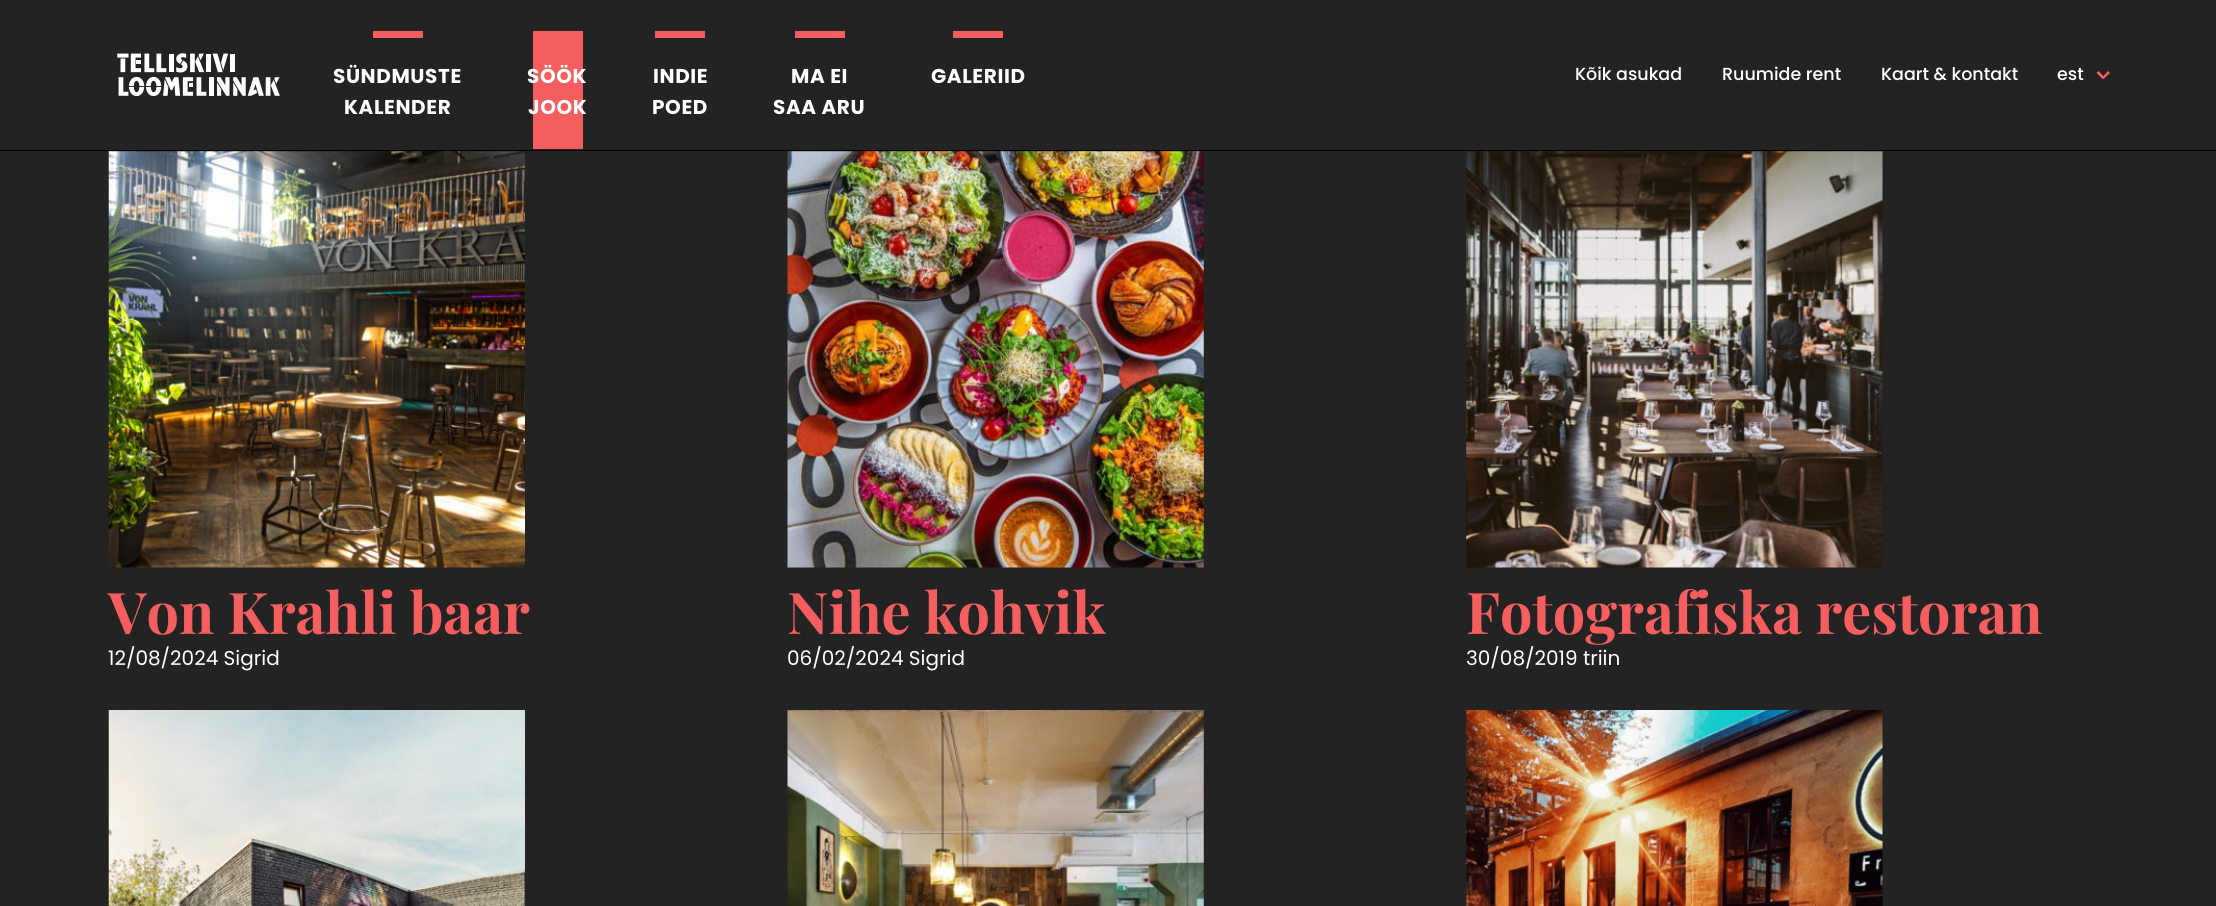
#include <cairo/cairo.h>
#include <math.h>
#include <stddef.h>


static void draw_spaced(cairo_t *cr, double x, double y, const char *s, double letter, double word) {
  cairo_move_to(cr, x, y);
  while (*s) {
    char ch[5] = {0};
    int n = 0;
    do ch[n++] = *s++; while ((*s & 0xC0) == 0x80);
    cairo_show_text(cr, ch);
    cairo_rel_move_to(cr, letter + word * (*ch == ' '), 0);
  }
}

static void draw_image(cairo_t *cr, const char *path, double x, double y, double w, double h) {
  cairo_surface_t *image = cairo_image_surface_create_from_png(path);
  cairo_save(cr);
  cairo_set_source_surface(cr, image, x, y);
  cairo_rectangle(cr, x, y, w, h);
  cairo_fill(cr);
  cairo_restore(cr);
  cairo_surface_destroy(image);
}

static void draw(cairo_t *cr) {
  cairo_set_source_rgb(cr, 35 / 255.0, 35 / 255.0, 35 / 255.0);
  cairo_paint(cr);
  cairo_set_source_rgb(cr, 0, 0, 0);
  cairo_rectangle(cr, 0, 150, 2216, 1);
  cairo_fill(cr);
  draw_image(cr, "images/1.png", 117, 53, 163, 44);
  cairo_set_source_rgb(cr, 244 / 255.0, 94 / 255.0, 95 / 255.0);
  cairo_rectangle(cr, 373, 31, 50, 7);
  cairo_fill(cr);
  cairo_rectangle(cr, 533, 31, 50, 118);
  cairo_fill(cr);
  cairo_rectangle(cr, 655, 31, 50, 7);
  cairo_fill(cr);
  cairo_rectangle(cr, 795, 31, 50, 7);
  cairo_fill(cr);
  cairo_rectangle(cr, 953, 31, 50, 7);
  cairo_fill(cr);
  cairo_new_path(cr);
  cairo_move_to(cr, 2102, 77.5);
  cairo_line_to(cr, 2108, 71);
  cairo_line_to(cr, 2110, 73);
  cairo_line_to(cr, 2103.5, 79);
  cairo_close_path(cr);
  cairo_fill(cr);
  cairo_new_path(cr);
  cairo_move_to(cr, 2096.5, 73);
  cairo_line_to(cr, 2098.5, 71);
  cairo_line_to(cr, 2104.5, 77.5);
  cairo_line_to(cr, 2102.5, 79);
  cairo_close_path(cr);
  cairo_fill(cr);
  draw_image(cr, "images/2.png", 108, 151, 417, 417);
  draw_image(cr, "images/3.png", 787, 151, 417, 417);
  draw_image(cr, "images/4.png", 1466, 151, 417, 417);
  draw_image(cr, "images/5.png", 108, 710, 417, 196);
  draw_image(cr, "images/6.png", 787, 710, 417, 196);
  draw_image(cr, "images/7.png", 1466, 710, 417, 196);
  cairo_select_font_face(cr, "Poppins", CAIRO_FONT_SLANT_NORMAL, CAIRO_FONT_WEIGHT_BOLD);
  cairo_set_font_size(cr, 20);
  cairo_set_source_rgb(cr, 1, 1, 1);
  draw_spaced(cr, 333, 83, "SÜNDMUSTE", 0.6, 0);
  draw_spaced(cr, 344, 114, "KALENDER", 0.6, 0);
  draw_spaced(cr, 527, 83, "SÖÖK", 0.6, 0);
  draw_spaced(cr, 528, 114, "JOOK", 0.6, 0);
  draw_spaced(cr, 653, 83, "INDIE", 0.6, 0);
  draw_spaced(cr, 652, 114, "POED", 0.6, 0);
  draw_spaced(cr, 791, 83, "MA EI", 0.6, 0);
  draw_spaced(cr, 773, 114, "SAA ARU", 0.6, 0);
  draw_spaced(cr, 931, 83, "GALERIID", 0.6, 0);
  cairo_select_font_face(cr, "Poppins Medium", CAIRO_FONT_SLANT_NORMAL, CAIRO_FONT_WEIGHT_NORMAL);
  cairo_set_font_size(cr, 17.5);
  cairo_move_to(cr, 1575, 80);
  cairo_show_text(cr, "Kõik asukad");
  cairo_move_to(cr, 1722, 80);
  cairo_show_text(cr, "Ruumide rent");
  cairo_move_to(cr, 1881, 80);
  cairo_show_text(cr, "Kaart & kontakt");
  cairo_move_to(cr, 2057, 80);
  cairo_show_text(cr, "est");
  cairo_select_font_face(cr, "Playfair Display", CAIRO_FONT_SLANT_NORMAL, CAIRO_FONT_WEIGHT_BOLD);
  cairo_set_font_size(cr, 57.5);
  cairo_set_source_rgb(cr, 244 / 255.0, 94 / 255.0, 95 / 255.0);
  cairo_move_to(cr, 108, 634);
  cairo_show_text(cr, "Von Krahli baar");
  cairo_select_font_face(cr, "Poppins", CAIRO_FONT_SLANT_NORMAL, CAIRO_FONT_WEIGHT_NORMAL);
  cairo_set_font_size(cr, 20);
  cairo_set_source_rgb(cr, 1, 1, 1);
  cairo_move_to(cr, 108, 665);
  cairo_show_text(cr, "12/08/2024 Sigrid");
  cairo_select_font_face(cr, "Playfair Display", CAIRO_FONT_SLANT_NORMAL, CAIRO_FONT_WEIGHT_BOLD);
  cairo_set_font_size(cr, 57.5);
  cairo_set_source_rgb(cr, 244 / 255.0, 94 / 255.0, 95 / 255.0);
  cairo_move_to(cr, 787, 634);
  cairo_show_text(cr, "Nihe kohvik");
  cairo_select_font_face(cr, "Poppins", CAIRO_FONT_SLANT_NORMAL, CAIRO_FONT_WEIGHT_NORMAL);
  cairo_set_font_size(cr, 20);
  cairo_set_source_rgb(cr, 1, 1, 1);
  cairo_move_to(cr, 787, 665);
  cairo_show_text(cr, "06/02/2024 Sigrid");
  cairo_select_font_face(cr, "Playfair Display", CAIRO_FONT_SLANT_NORMAL, CAIRO_FONT_WEIGHT_BOLD);
  cairo_set_font_size(cr, 57.5);
  cairo_set_source_rgb(cr, 244 / 255.0, 94 / 255.0, 95 / 255.0);
  cairo_move_to(cr, 1466, 634);
  cairo_show_text(cr, "Fotografiska restoran");
  cairo_select_font_face(cr, "Poppins", CAIRO_FONT_SLANT_NORMAL, CAIRO_FONT_WEIGHT_NORMAL);
  cairo_set_font_size(cr, 20);
  cairo_set_source_rgb(cr, 1, 1, 1);
  cairo_move_to(cr, 1466, 665);
  cairo_show_text(cr, "30/08/2019 triin");
}

int main(void) {
  cairo_surface_t *surface = cairo_image_surface_create(CAIRO_FORMAT_RGB24, 2216, 906);
  cairo_t *cr = cairo_create(surface);
  cairo_font_options_t *options = cairo_font_options_create();
  cairo_font_options_set_hint_metrics(options, CAIRO_HINT_METRICS_OFF);
  cairo_font_options_set_hint_style(options, CAIRO_HINT_STYLE_NONE);
  cairo_set_font_options(cr, options);
  cairo_set_miter_limit(cr, 4);
  draw(cr);
  cairo_surface_write_to_png(surface, "out.png");
  cairo_font_options_destroy(options);
  cairo_destroy(cr);
  cairo_surface_destroy(surface);
  return 0;
}
